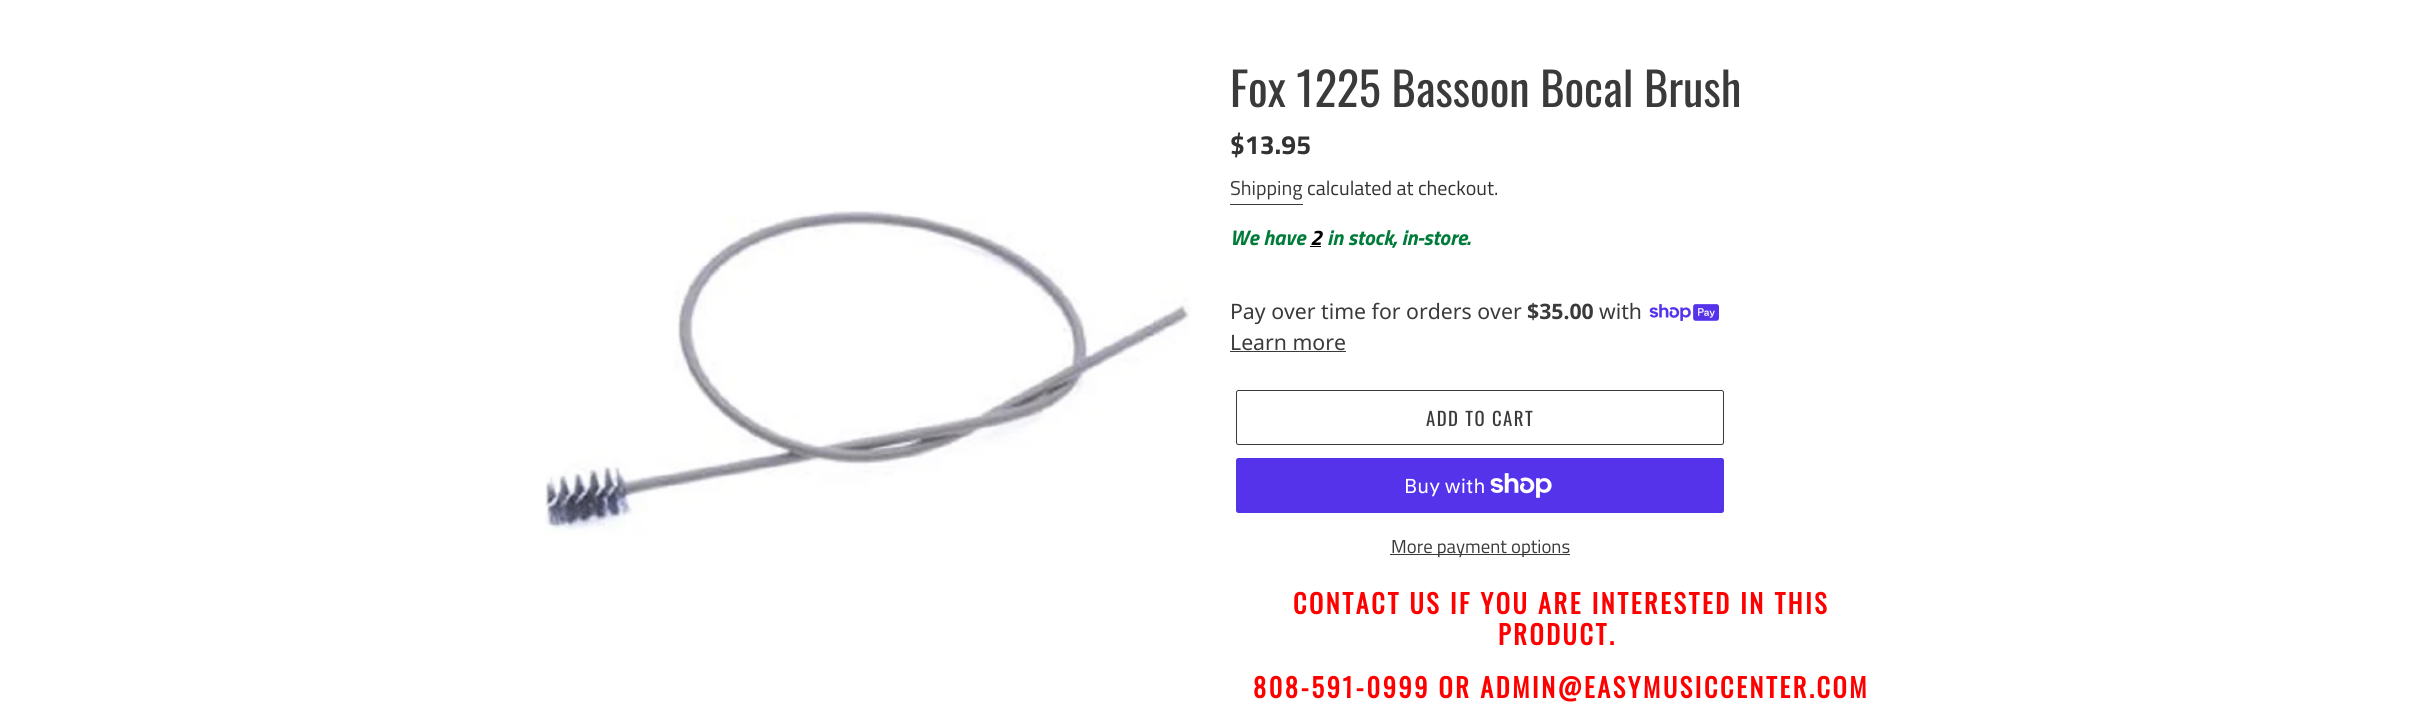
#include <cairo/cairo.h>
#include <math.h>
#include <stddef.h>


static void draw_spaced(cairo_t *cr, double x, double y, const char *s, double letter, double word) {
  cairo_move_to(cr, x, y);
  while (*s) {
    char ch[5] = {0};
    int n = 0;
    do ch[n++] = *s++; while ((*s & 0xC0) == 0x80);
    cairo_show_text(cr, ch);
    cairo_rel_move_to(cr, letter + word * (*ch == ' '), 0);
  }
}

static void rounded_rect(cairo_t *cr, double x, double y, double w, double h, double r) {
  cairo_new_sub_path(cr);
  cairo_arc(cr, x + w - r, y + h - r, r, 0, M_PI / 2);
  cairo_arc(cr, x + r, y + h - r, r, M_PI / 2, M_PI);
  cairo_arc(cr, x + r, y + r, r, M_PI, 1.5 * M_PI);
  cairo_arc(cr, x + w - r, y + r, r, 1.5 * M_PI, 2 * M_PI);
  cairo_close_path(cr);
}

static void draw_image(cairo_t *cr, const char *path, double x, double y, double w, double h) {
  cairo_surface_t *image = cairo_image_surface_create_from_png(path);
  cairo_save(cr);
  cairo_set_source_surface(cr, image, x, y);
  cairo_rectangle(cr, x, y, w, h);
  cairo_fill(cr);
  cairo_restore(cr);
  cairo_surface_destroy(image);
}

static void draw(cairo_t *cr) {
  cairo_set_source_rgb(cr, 1, 1, 1);
  cairo_paint(cr);
  draw_image(cr, "images/1.png", 545, 210, 646, 325);
  cairo_set_source_rgb(cr, 58 / 255.0, 58 / 255.0, 58 / 255.0);
  cairo_rectangle(cr, 1230, 204, 73, 1);
  cairo_fill(cr);
  cairo_set_source_rgb(cr, 0, 0, 0);
  cairo_rectangle(cr, 1310, 246, 11, 1);
  cairo_fill(cr);
  draw_image(cr, "images/2.png", 1649, 304, 70, 17);
  cairo_set_source_rgb(cr, 58 / 255.0, 58 / 255.0, 58 / 255.0);
  cairo_rectangle(cr, 1230, 351, 116, 1);
  cairo_fill(cr);
  rounded_rect(cr, 1236.5, 390.5, 487, 54, 2);
  cairo_set_line_width(cr, 1);
  cairo_stroke(cr);
  cairo_set_source_rgb(cr, 84 / 255.0, 51 / 255.0, 235 / 255.0);
  rounded_rect(cr, 1236, 458, 488, 55, 2.5);
  cairo_fill(cr);
  draw_image(cr, "images/3.png", 1490, 473, 62, 25);
  cairo_set_source_rgb(cr, 58 / 255.0, 58 / 255.0, 58 / 255.0);
  cairo_rectangle(cr, 1390, 554, 180, 1);
  cairo_fill(cr);
  cairo_select_font_face(cr, "Oswald", CAIRO_FONT_SLANT_NORMAL, CAIRO_FONT_WEIGHT_NORMAL);
  cairo_set_font_size(cr, 46.25);
  cairo_move_to(cr, 1230, 107);
  cairo_show_text(cr, "Fox 1225 Bassoon Bocal Brush");
  cairo_select_font_face(cr, "Titillium Web", CAIRO_FONT_SLANT_NORMAL, CAIRO_FONT_WEIGHT_BOLD);
  cairo_set_font_size(cr, 26.5);
  cairo_set_source_rgb(cr, 51 / 255.0, 50 / 255.0, 50 / 255.0);
  cairo_move_to(cr, 1230, 154);
  cairo_show_text(cr, "$13.95");
  cairo_select_font_face(cr, "Titillium Web", CAIRO_FONT_SLANT_NORMAL, CAIRO_FONT_WEIGHT_NORMAL);
  cairo_set_font_size(cr, 20);
  cairo_set_source_rgb(cr, 58 / 255.0, 58 / 255.0, 58 / 255.0);
  cairo_move_to(cr, 1230, 195);
  cairo_show_text(cr, "Shipping");
  cairo_set_source_rgb(cr, 51 / 255.0, 50 / 255.0, 50 / 255.0);
  cairo_move_to(cr, 1307, 195);
  cairo_show_text(cr, "calculated at checkout.");
  cairo_select_font_face(cr, "Titillium Web", CAIRO_FONT_SLANT_ITALIC, CAIRO_FONT_WEIGHT_BOLD);
  cairo_set_font_size(cr, 21.25);
  cairo_set_source_rgb(cr, 0, 123 / 255.0, 57 / 255.0);
  cairo_move_to(cr, 1230, 245);
  cairo_show_text(cr, "We have");
  cairo_set_source_rgb(cr, 0, 0, 0);
  cairo_move_to(cr, 1310, 245);
  cairo_show_text(cr, "2");
  cairo_set_source_rgb(cr, 0, 123 / 255.0, 57 / 255.0);
  cairo_move_to(cr, 1327, 245);
  cairo_show_text(cr, "in stock, in-store.");
  cairo_select_font_face(cr, "Noto Sans", CAIRO_FONT_SLANT_NORMAL, CAIRO_FONT_WEIGHT_NORMAL);
  cairo_set_source_rgb(cr, 58 / 255.0, 58 / 255.0, 58 / 255.0);
  cairo_move_to(cr, 1230, 319);
  cairo_show_text(cr, "Pay over time for orders over");
  cairo_select_font_face(cr, "Noto Sans", CAIRO_FONT_SLANT_NORMAL, CAIRO_FONT_WEIGHT_BOLD);
  cairo_move_to(cr, 1527, 319);
  cairo_show_text(cr, "$35.00");
  cairo_select_font_face(cr, "Noto Sans", CAIRO_FONT_SLANT_NORMAL, CAIRO_FONT_WEIGHT_NORMAL);
  cairo_move_to(cr, 1599, 319);
  cairo_show_text(cr, "with");
  cairo_move_to(cr, 1230, 350);
  cairo_show_text(cr, "Learn more");
  cairo_select_font_face(cr, "Oswald", CAIRO_FONT_SLANT_NORMAL, CAIRO_FONT_WEIGHT_NORMAL);
  cairo_set_font_size(cr, 18.75);
  draw_spaced(cr, 1426, 426, "ADD TO CART", 1.5, 0);
  cairo_select_font_face(cr, "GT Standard", CAIRO_FONT_SLANT_NORMAL, CAIRO_FONT_WEIGHT_NORMAL);
  cairo_set_font_size(cr, 20);
  cairo_set_source_rgb(cr, 1, 1, 1);
  cairo_move_to(cr, 1404, 493);
  cairo_show_text(cr, "Buy with");
  cairo_select_font_face(cr, "Titillium Web", CAIRO_FONT_SLANT_NORMAL, CAIRO_FONT_WEIGHT_NORMAL);
  cairo_set_font_size(cr, 18.75);
  cairo_set_source_rgb(cr, 58 / 255.0, 58 / 255.0, 58 / 255.0);
  cairo_move_to(cr, 1391, 553);
  cairo_show_text(cr, "More payment options");
  cairo_select_font_face(cr, "Oswald", CAIRO_FONT_SLANT_NORMAL, CAIRO_FONT_WEIGHT_BOLD);
  cairo_set_font_size(cr, 26.25);
  cairo_set_source_rgb(cr, 1, 0, 0);
  draw_spaced(cr, 1293, 614, "CONTACT US IF YOU ARE INTERESTED IN THIS", 2.6, 0);
  draw_spaced(cr, 1498, 645, "PRODUCT.", 2.6, 0);
  draw_spaced(cr, 1253, 698, "808-591-0999 OR ADMIN@EASYMUSICCENTER.COM", 2.6, 0);
}

int main(void) {
  cairo_surface_t *surface = cairo_image_surface_create(CAIRO_FORMAT_RGB24, 2422, 721);
  cairo_t *cr = cairo_create(surface);
  cairo_font_options_t *options = cairo_font_options_create();
  cairo_font_options_set_hint_metrics(options, CAIRO_HINT_METRICS_OFF);
  cairo_font_options_set_hint_style(options, CAIRO_HINT_STYLE_NONE);
  cairo_set_font_options(cr, options);
  cairo_set_miter_limit(cr, 4);
  draw(cr);
  cairo_surface_write_to_png(surface, "out.png");
  cairo_font_options_destroy(options);
  cairo_destroy(cr);
  cairo_surface_destroy(surface);
  return 0;
}
